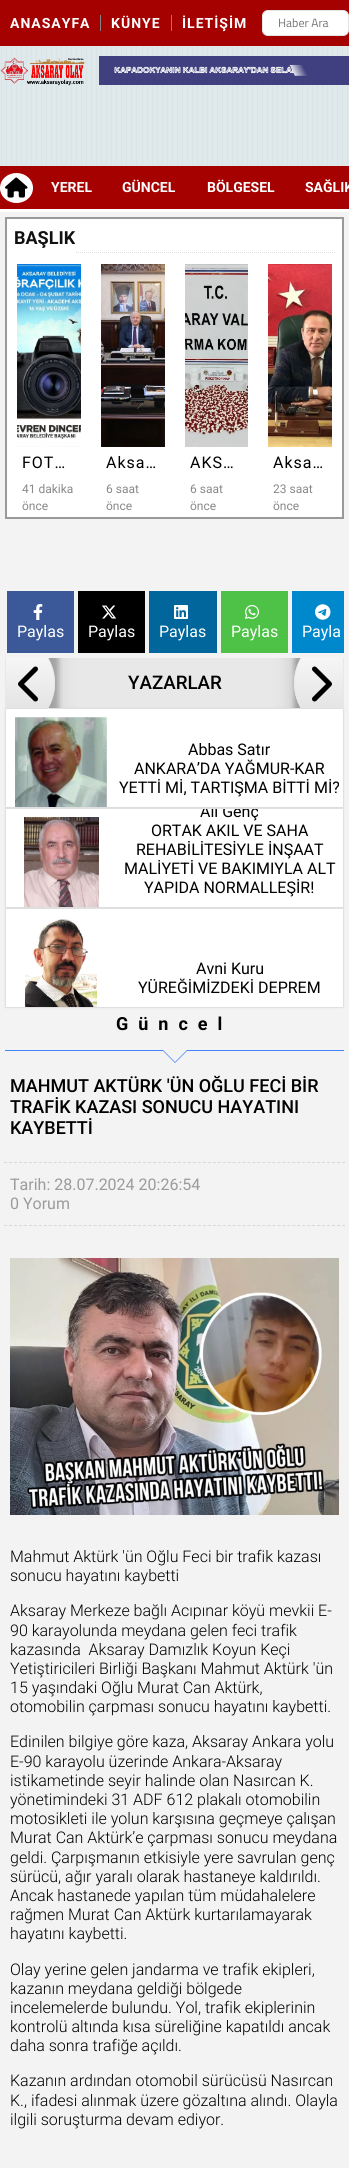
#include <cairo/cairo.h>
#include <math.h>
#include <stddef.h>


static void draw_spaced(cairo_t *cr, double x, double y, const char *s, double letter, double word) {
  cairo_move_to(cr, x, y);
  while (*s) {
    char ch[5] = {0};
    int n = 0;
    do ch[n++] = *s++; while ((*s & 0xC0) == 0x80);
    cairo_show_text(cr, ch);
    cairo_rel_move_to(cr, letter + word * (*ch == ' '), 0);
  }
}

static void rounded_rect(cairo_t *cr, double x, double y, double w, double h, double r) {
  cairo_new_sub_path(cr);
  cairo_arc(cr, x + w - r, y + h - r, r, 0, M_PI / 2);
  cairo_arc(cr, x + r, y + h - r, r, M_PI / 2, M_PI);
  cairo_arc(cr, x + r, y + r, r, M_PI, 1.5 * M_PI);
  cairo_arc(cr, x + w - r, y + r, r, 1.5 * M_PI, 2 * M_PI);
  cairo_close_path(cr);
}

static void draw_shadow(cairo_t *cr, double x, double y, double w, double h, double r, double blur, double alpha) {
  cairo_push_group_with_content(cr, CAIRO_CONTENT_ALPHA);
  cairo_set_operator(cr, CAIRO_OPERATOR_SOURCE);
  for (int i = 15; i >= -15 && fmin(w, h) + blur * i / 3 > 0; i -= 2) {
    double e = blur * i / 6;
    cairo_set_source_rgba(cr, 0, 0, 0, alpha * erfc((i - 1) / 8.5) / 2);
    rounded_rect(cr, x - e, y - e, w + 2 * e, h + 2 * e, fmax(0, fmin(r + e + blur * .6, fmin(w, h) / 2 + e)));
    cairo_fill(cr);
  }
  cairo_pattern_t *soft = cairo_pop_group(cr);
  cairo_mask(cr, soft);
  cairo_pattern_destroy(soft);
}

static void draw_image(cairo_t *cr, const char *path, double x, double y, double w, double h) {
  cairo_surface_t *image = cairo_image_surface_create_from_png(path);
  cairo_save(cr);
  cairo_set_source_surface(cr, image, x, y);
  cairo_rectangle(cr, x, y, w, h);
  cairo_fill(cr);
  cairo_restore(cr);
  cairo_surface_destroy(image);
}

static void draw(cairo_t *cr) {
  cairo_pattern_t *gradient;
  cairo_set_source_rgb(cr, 243 / 255.0, 243 / 255.0, 243 / 255.0);
  cairo_paint(cr);
  cairo_set_source_rgb(cr, 165 / 255.0, 1 / 255.0, 1 / 255.0);
  cairo_rectangle(cr, 0, 0, 349, 46);
  cairo_fill(cr);
  cairo_set_source_rgb(cr, 132 / 255.0, 132 / 255.0, 132 / 255.0);
  cairo_rectangle(cr, 100, 15, 1, 16);
  cairo_fill(cr);
  cairo_rectangle(cr, 171, 15, 1, 16);
  cairo_fill(cr);
  cairo_set_source_rgb(cr, 1, 1, 1);
  rounded_rect(cr, 262.5, 10.5, 86, 25, 5.5);
  cairo_fill_preserve(cr);
  cairo_set_source_rgb(cr, 228 / 255.0, 228 / 255.0, 228 / 255.0);
  cairo_set_line_width(cr, 1);
  cairo_stroke(cr);
  cairo_set_source_rgb(cr, 1, 1, 1);
  rounded_rect(cr, 273, 11, 75, 24, 5);
  cairo_fill(cr);
  draw_image(cr, "images/1.png", 0, 46, 349, 120);
  draw_image(cr, "images/2.png", 0, 57, 85, 29);
  draw_image(cr, "images/3.png", 99, 56, 250, 29);
  cairo_set_source_rgb(cr, 165 / 255.0, 1 / 255.0, 1 / 255.0);
  cairo_rectangle(cr, 0, 166, 349, 43);
  cairo_fill(cr);
  cairo_set_source_rgb(cr, 1, 1, 1);
  cairo_rectangle(cr, 0, 209, 349, 3);
  cairo_fill(cr);
  cairo_new_path(cr);
  cairo_move_to(cr, 16.5, 173);
  cairo_curve_to(cr, 25.5, 173, 33, 179.5, 33, 188);
  cairo_curve_to(cr, 33, 196.5, 25.5, 203, 16.5, 203);
  cairo_curve_to(cr, 7.5, 203, 0, 196.5, 0, 188);
  cairo_curve_to(cr, 0, 179.5, 7.5, 173, 16.5, 173);
  cairo_close_path(cr);
  cairo_fill(cr);
  draw_image(cr, "images/4.png", 5, 177, 23, 21);
  cairo_rectangle(cr, 6, 218, 337, 300);
  cairo_fill_preserve(cr);
  cairo_set_source_rgb(cr, 153 / 255.0, 153 / 255.0, 153 / 255.0);
  cairo_set_line_width(cr, 2);
  cairo_stroke(cr);
  cairo_new_path(cr);
  cairo_move_to(cr, 14, 252.5);
  cairo_line_to(cr, 335, 252.5);
  cairo_set_source_rgb(cr, 221 / 255.0, 221 / 255.0, 221 / 255.0);
  cairo_set_line_width(cr, 1);
  cairo_set_dash(cr, (double[]){1, 1}, 2, 0);
  cairo_stroke(cr);
  cairo_set_source_rgb(cr, 1, 1, 1);
  cairo_rectangle(cr, 14, 252, 61, 1);
  cairo_fill(cr);
  draw_image(cr, "images/5.png", 17, 264, 64, 183);
  draw_image(cr, "images/6.png", 101, 264, 64, 183);
  draw_image(cr, "images/7.png", 185, 264, 63, 183);
  draw_image(cr, "images/8.png", 268, 264, 64, 183);
  cairo_set_source_rgb(cr, 59 / 255.0, 89 / 255.0, 152 / 255.0);
  cairo_rectangle(cr, 7, 591, 67, 62);
  cairo_fill(cr);
  draw_image(cr, "images/9.png", 33, 604, 10, 16);
  cairo_set_source_rgb(cr, 0, 0, 0);
  cairo_rectangle(cr, 78, 591, 67, 62);
  cairo_fill(cr);
  draw_image(cr, "images/10.png", 102, 605, 15, 14);
  cairo_set_source_rgb(cr, 1 / 255.0, 102 / 255.0, 155 / 255.0);
  cairo_rectangle(cr, 149, 591, 68, 62);
  cairo_fill(cr);
  draw_image(cr, "images/11.png", 174, 605, 14, 14);
  cairo_set_source_rgb(cr, 77 / 255.0, 194 / 255.0, 71 / 255.0);
  cairo_rectangle(cr, 221, 591, 67, 62);
  cairo_fill(cr);
  draw_image(cr, "images/12.png", 245, 605, 14, 14);
  cairo_set_source_rgb(cr, 0, 136 / 255.0, 204 / 255.0);
  cairo_rectangle(cr, 292, 591, 52, 62);
  cairo_fill(cr);
  draw_image(cr, "images/13.png", 315, 604, 16, 16);
  cairo_set_source_rgb(cr, 232 / 255.0, 232 / 255.0, 232 / 255.0);
  cairo_rectangle(cr, 48, 658, 253, 50);
  cairo_fill(cr);
  cairo_rectangle(cr, 5.5, 708.5, 338, 99);
  cairo_set_dash(cr, NULL, 0, 0);
  cairo_stroke(cr);
  cairo_set_source_rgb(cr, 192 / 255.0, 192 / 255.0, 192 / 255.0);
  draw_shadow(cr, 6, 709, 337, 98, 0, 1.5, 0.5);
  cairo_set_source_rgb(cr, 1, 1, 1);
  cairo_rectangle(cr, 6, 709, 337, 98);
  cairo_fill(cr);
  draw_image(cr, "images/16.png", 15, 717, 92, 90);
  cairo_save(cr);
  cairo_rectangle(cr, 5, 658, 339, 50);
  cairo_clip(cr);
  cairo_set_source_rgb(cr, 0, 0, 0);
  draw_shadow(cr, 5, 639, 50, 100, 50, 10, 0.2);
  draw_shadow(cr, 5, 633, 54, 104, 52, 2, 0.2);
  cairo_restore(cr);
  cairo_save(cr);
  cairo_new_path(cr);
  cairo_move_to(cr, 5, 633);
  cairo_curve_to(cr, 32.5, 633, 55, 655.5, 55, 683);
  cairo_curve_to(cr, 55, 710.5, 32.5, 733, 5, 733);
  cairo_close_path(cr);
  cairo_clip(cr);
  gradient = cairo_pattern_create_linear(30, 634, 30, 732);
  cairo_pattern_add_color_stop_rgba(gradient, 0, 254 / 255.0, 254 / 255.0, 254 / 255.0, 1);
  cairo_pattern_add_color_stop_rgba(gradient, 1, 220 / 255.0, 220 / 255.0, 220 / 255.0, 1);
  cairo_set_source(cr, gradient);
  cairo_pattern_destroy(gradient);
  cairo_rectangle(cr, 6, 658, 49, 50);
  cairo_fill(cr);
  cairo_restore(cr);
  cairo_save(cr);
  cairo_rectangle(cr, 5, 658, 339, 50);
  cairo_clip(cr);
  cairo_set_source_rgb(cr, 0, 0, 0);
  draw_shadow(cr, 294, 639, 50, 100, 50, 10, 0.2);
  draw_shadow(cr, 294, 633, 54, 104, 52, 2, 0.2);
  cairo_restore(cr);
  cairo_save(cr);
  cairo_new_path(cr);
  cairo_move_to(cr, 344, 633);
  cairo_line_to(cr, 344, 733);
  cairo_curve_to(cr, 316.5, 733, 294, 710.5, 294, 683);
  cairo_curve_to(cr, 294, 655.5, 316.5, 633, 344, 633);
  cairo_close_path(cr);
  cairo_clip(cr);
  gradient = cairo_pattern_create_linear(319, 634, 319, 732);
  cairo_pattern_add_color_stop_rgba(gradient, 0, 254 / 255.0, 254 / 255.0, 254 / 255.0, 1);
  cairo_pattern_add_color_stop_rgba(gradient, 1, 220 / 255.0, 220 / 255.0, 220 / 255.0, 1);
  cairo_set_source(cr, gradient);
  cairo_pattern_destroy(gradient);
  cairo_rectangle(cr, 294, 658, 49, 50);
  cairo_fill(cr);
  cairo_restore(cr);
  cairo_rectangle(cr, 5.5, 808.5, 338, 99);
  cairo_set_source_rgb(cr, 232 / 255.0, 232 / 255.0, 232 / 255.0);
  cairo_stroke(cr);
  cairo_set_source_rgb(cr, 192 / 255.0, 192 / 255.0, 192 / 255.0);
  draw_shadow(cr, 6, 809, 337, 98, 0, 1.5, 0.5);
  cairo_set_source_rgb(cr, 1, 1, 1);
  cairo_rectangle(cr, 6, 809, 337, 98);
  cairo_fill(cr);
  draw_image(cr, "images/17.png", 24, 817, 75, 90);
  cairo_rectangle(cr, 5.5, 908.5, 338, 99);
  cairo_set_source_rgb(cr, 232 / 255.0, 232 / 255.0, 232 / 255.0);
  cairo_stroke(cr);
  cairo_set_source_rgb(cr, 192 / 255.0, 192 / 255.0, 192 / 255.0);
  draw_shadow(cr, 6, 909, 337, 98, 0, 1.5, 0.5);
  cairo_set_source_rgb(cr, 1, 1, 1);
  cairo_rectangle(cr, 6, 909, 337, 98);
  cairo_fill(cr);
  draw_image(cr, "images/18.png", 25, 919, 72, 88);
  cairo_set_source_rgb(cr, 66 / 255.0, 133 / 255.0, 244 / 255.0);
  cairo_rectangle(cr, 5, 1050, 339, 1);
  cairo_fill(cr);
  cairo_new_path(cr);
  cairo_move_to(cr, 162, 1050);
  cairo_line_to(cr, 188, 1050);
  cairo_line_to(cr, 175, 1063);
  cairo_close_path(cr);
  cairo_fill(cr);
  cairo_set_source_rgb(cr, 243 / 255.0, 243 / 255.0, 243 / 255.0);
  cairo_new_path(cr);
  cairo_move_to(cr, 163, 1050);
  cairo_line_to(cr, 187, 1050);
  cairo_line_to(cr, 175, 1062);
  cairo_close_path(cr);
  cairo_fill(cr);
  cairo_new_path(cr);
  cairo_move_to(cr, 4, 1162.5);
  cairo_line_to(cr, 345, 1162.5);
  cairo_set_source_rgb(cr, 216 / 255.0, 216 / 255.0, 216 / 255.0);
  cairo_set_dash(cr, (double[]){3, 1.97}, 2, 0);
  cairo_stroke(cr);
  cairo_new_path(cr);
  cairo_move_to(cr, 4, 1225.5);
  cairo_line_to(cr, 345, 1225.5);
  cairo_stroke(cr);
  draw_image(cr, "images/19.png", 10, 1258, 329, 257);
  cairo_select_font_face(cr, "Roboto", CAIRO_FONT_SLANT_NORMAL, CAIRO_FONT_WEIGHT_BOLD);
  cairo_set_font_size(cr, 14);
  cairo_set_source_rgb(cr, 1, 1, 1);
  draw_spaced(cr, 10, 28, "ANASAYFA", 1, 0);
  draw_spaced(cr, 111, 28, "KÜNYE", 1, 0);
  draw_spaced(cr, 182, 28, "İLETİŞİM", 1, 0);
  cairo_select_font_face(cr, "Titillium Web", CAIRO_FONT_SLANT_NORMAL, CAIRO_FONT_WEIGHT_NORMAL);
  cairo_set_font_size(cr, 12);
  cairo_set_source_rgb(cr, 117 / 255.0, 117 / 255.0, 117 / 255.0);
  cairo_move_to(cr, 278, 27);
  cairo_show_text(cr, "Haber Ara");
  cairo_select_font_face(cr, "Roboto", CAIRO_FONT_SLANT_NORMAL, CAIRO_FONT_WEIGHT_BOLD);
  cairo_set_font_size(cr, 14);
  cairo_set_source_rgb(cr, 1, 1, 1);
  cairo_move_to(cr, 51, 192);
  cairo_show_text(cr, "YEREL");
  cairo_move_to(cr, 122, 192);
  cairo_show_text(cr, "GÜNCEL");
  cairo_move_to(cr, 207, 192);
  cairo_show_text(cr, "BÖLGESEL");
  cairo_move_to(cr, 305, 192);
  cairo_show_text(cr, "SAĞLIK");
  cairo_set_font_size(cr, 18);
  cairo_set_source_rgb(cr, 17 / 255.0, 17 / 255.0, 17 / 255.0);
  cairo_move_to(cr, 14, 244);
  cairo_show_text(cr, "BAŞLIK");
  cairo_select_font_face(cr, "Roboto", CAIRO_FONT_SLANT_NORMAL, CAIRO_FONT_WEIGHT_NORMAL);
  cairo_set_font_size(cr, 16);
  cairo_set_source_rgb(cr, 0, 0, 0);
  draw_spaced(cr, 22, 468, "FOT…", 1, 0);
  cairo_set_font_size(cr, 12);
  cairo_set_source_rgb(cr, 136 / 255.0, 136 / 255.0, 136 / 255.0);
  cairo_move_to(cr, 22, 493);
  cairo_show_text(cr, "41 dakika");
  cairo_move_to(cr, 22, 510);
  cairo_show_text(cr, "önce");
  cairo_set_font_size(cr, 16);
  cairo_set_source_rgb(cr, 0, 0, 0);
  draw_spaced(cr, 106, 468, "Aksa…", 1, 0);
  cairo_set_font_size(cr, 12);
  cairo_set_source_rgb(cr, 136 / 255.0, 136 / 255.0, 136 / 255.0);
  cairo_move_to(cr, 106, 493);
  cairo_show_text(cr, "6 saat");
  cairo_move_to(cr, 106, 510);
  cairo_show_text(cr, "önce");
  cairo_set_font_size(cr, 16);
  cairo_set_source_rgb(cr, 0, 0, 0);
  draw_spaced(cr, 190, 468, "AKS…", 1, 0);
  cairo_set_font_size(cr, 12);
  cairo_set_source_rgb(cr, 136 / 255.0, 136 / 255.0, 136 / 255.0);
  cairo_move_to(cr, 190, 493);
  cairo_show_text(cr, "6 saat");
  cairo_move_to(cr, 190, 510);
  cairo_show_text(cr, "önce");
  cairo_set_font_size(cr, 16);
  cairo_set_source_rgb(cr, 0, 0, 0);
  draw_spaced(cr, 273, 468, "Aksa…", 1, 0);
  cairo_set_font_size(cr, 12);
  cairo_set_source_rgb(cr, 136 / 255.0, 136 / 255.0, 136 / 255.0);
  cairo_move_to(cr, 273, 493);
  cairo_show_text(cr, "23 saat");
  cairo_move_to(cr, 273, 510);
  cairo_show_text(cr, "önce");
  cairo_set_font_size(cr, 16);
  cairo_set_source_rgb(cr, 1, 1, 1);
  cairo_move_to(cr, 17, 637);
  cairo_show_text(cr, "Paylas");
  cairo_move_to(cr, 88, 637);
  cairo_show_text(cr, "Paylas");
  cairo_move_to(cr, 159, 637);
  cairo_show_text(cr, "Paylas");
  cairo_move_to(cr, 231, 637);
  cairo_show_text(cr, "Paylas");
  cairo_move_to(cr, 302, 637);
  cairo_show_text(cr, "Payla");
  cairo_save(cr);
  cairo_rectangle(cr, 5, 658, 339, 50);
  cairo_clip(cr);
  cairo_new_path(cr);
  cairo_move_to(cr, 5.5, 633.5);
  cairo_line_to(cr, 5, 633.5);
  cairo_curve_to(cr, 32.5, 633.5, 54.5, 655.5, 54.5, 683);
  cairo_curve_to(cr, 54.5, 710.5, 32.5, 732.5, 5, 732.5);
  cairo_line_to(cr, 5.5, 732.5);
  cairo_close_path(cr);
  cairo_set_source_rgb(cr, 232 / 255.0, 232 / 255.0, 232 / 255.0);
  cairo_set_dash(cr, NULL, 0, 0);
  cairo_stroke(cr);
  cairo_restore(cr);
  draw_image(cr, "images/14.png", 18, 666, 20, 36);
  cairo_select_font_face(cr, "Roboto Medium", CAIRO_FONT_SLANT_NORMAL, CAIRO_FONT_WEIGHT_NORMAL);
  cairo_set_font_size(cr, 18.75);
  cairo_set_source_rgb(cr, 0, 0, 0);
  cairo_move_to(cr, 128, 689);
  cairo_show_text(cr, "YAZARLAR");
  cairo_save(cr);
  cairo_rectangle(cr, 5, 658, 339, 50);
  cairo_clip(cr);
  cairo_new_path(cr);
  cairo_move_to(cr, 344, 633.5);
  cairo_line_to(cr, 343.5, 633.5);
  cairo_line_to(cr, 343.5, 732.5);
  cairo_line_to(cr, 344, 732.5);
  cairo_curve_to(cr, 316.5, 732.5, 294.5, 710.5, 294.5, 683);
  cairo_curve_to(cr, 294.5, 655.5, 316.5, 633.5, 344, 633.5);
  cairo_close_path(cr);
  cairo_set_source_rgb(cr, 232 / 255.0, 232 / 255.0, 232 / 255.0);
  cairo_set_dash(cr, NULL, 0, 0);
  cairo_stroke(cr);
  cairo_restore(cr);
  draw_image(cr, "images/15.png", 312, 666, 20, 36);
  cairo_select_font_face(cr, "Roboto", CAIRO_FONT_SLANT_NORMAL, CAIRO_FONT_WEIGHT_NORMAL);
  cairo_set_font_size(cr, 16);
  cairo_move_to(cr, 188, 755);
  cairo_show_text(cr, "Abbas Satır");
  cairo_move_to(cr, 134, 774);
  cairo_show_text(cr, "ANKARA’DA YAĞMUR-KAR");
  cairo_move_to(cr, 119, 793);
  cairo_show_text(cr, "YETTİ Mİ, TARTIŞMA BİTTİ Mİ?");
  cairo_save(cr);
  cairo_rectangle(cr, 6, 809, 337, 98);
  cairo_clip(cr);
  cairo_move_to(cr, 200, 817);
  cairo_show_text(cr, "Ali Genç");
  cairo_restore(cr);
  cairo_move_to(cr, 151, 836);
  cairo_show_text(cr, "ORTAK AKIL VE SAHA");
  cairo_move_to(cr, 136, 855);
  cairo_show_text(cr, "REHABİLİTESİYLE İNŞAAT");
  cairo_move_to(cr, 124, 874);
  cairo_show_text(cr, "MALİYETİ VE BAKIMIYLA ALT");
  cairo_move_to(cr, 144, 893);
  cairo_show_text(cr, "YAPIDA NORMALLEŞİR!");
  cairo_move_to(cr, 196, 974);
  cairo_show_text(cr, "Avni Kuru");
  cairo_move_to(cr, 138, 993);
  cairo_show_text(cr, "YÜREĞİMİZDEKİ DEPREM");
  cairo_select_font_face(cr, "Roboto", CAIRO_FONT_SLANT_NORMAL, CAIRO_FONT_WEIGHT_BOLD);
  cairo_set_font_size(cr, 18);
  draw_spaced(cr, 116, 1030, "Güncel", 10, 0);
  cairo_select_font_face(cr, "Roboto Medium", CAIRO_FONT_SLANT_NORMAL, CAIRO_FONT_WEIGHT_NORMAL);
  cairo_move_to(cr, 10, 1092);
  cairo_show_text(cr, "MAHMUT AKTÜRK 'ÜN OĞLU FECİ BİR");
  cairo_move_to(cr, 10, 1113);
  cairo_show_text(cr, "TRAFİK KAZASI SONUCU HAYATINI");
  cairo_move_to(cr, 10, 1134);
  cairo_show_text(cr, "KAYBETTİ");
  cairo_select_font_face(cr, "Roboto", CAIRO_FONT_SLANT_NORMAL, CAIRO_FONT_WEIGHT_NORMAL);
  cairo_set_font_size(cr, 16);
  cairo_set_source_rgb(cr, 155 / 255.0, 155 / 255.0, 155 / 255.0);
  cairo_move_to(cr, 10, 1190);
  cairo_show_text(cr, "Tarih: 28.07.2024 20:26:54");
  cairo_move_to(cr, 10, 1209);
  cairo_show_text(cr, "0 Yorum");
  cairo_select_font_face(cr, "Roboto Light", CAIRO_FONT_SLANT_NORMAL, CAIRO_FONT_WEIGHT_NORMAL);
  cairo_set_source_rgb(cr, 0, 0, 0);
  cairo_move_to(cr, 10, 1562);
  cairo_show_text(cr, "Mahmut Aktürk 'ün Oğlu Feci bir trafik kazası");
  cairo_move_to(cr, 10, 1581);
  cairo_show_text(cr, "sonucu hayatını kaybetti");
  cairo_move_to(cr, 10, 1616);
  cairo_show_text(cr, "Aksaray Merkeze bağlı Acıpınar köyü mevkii E-");
  cairo_move_to(cr, 10, 1636);
  cairo_show_text(cr, "90 karayolunda meydana gelen feci trafik");
  cairo_move_to(cr, 10, 1655);
  cairo_show_text(cr, "kazasında  Aksaray Damızlık Koyun Keçi");
  cairo_move_to(cr, 10, 1674);
  cairo_show_text(cr, "Yetiştiricileri Birliği Başkanı Mahmut Aktürk 'ün");
  cairo_move_to(cr, 10, 1693);
  cairo_show_text(cr, "15 yaşındaki Oğlu Murat Can Aktürk,");
  cairo_move_to(cr, 10, 1712);
  cairo_show_text(cr, "otomobilin çarpması sonucu hayatını kaybetti.");
  cairo_move_to(cr, 10, 1747);
  cairo_show_text(cr, "Edinilen bilgiye göre kaza, Aksaray Ankara yolu");
  cairo_move_to(cr, 10, 1767);
  cairo_show_text(cr, "E-90 karayolu üzerinde Ankara-Aksaray");
  cairo_move_to(cr, 10, 1786);
  cairo_show_text(cr, "istikametinde seyir halinde olan Nasırcan K.");
  cairo_move_to(cr, 10, 1805);
  cairo_show_text(cr, "yönetimindeki 31 ADF 612 plakalı otomobilin");
  cairo_move_to(cr, 10, 1824);
  cairo_show_text(cr, "motosikleti ile yolun karşısına geçmeye çalışan");
  cairo_move_to(cr, 10, 1843);
  cairo_show_text(cr, "Murat Can Aktürk’e çarpması sonucu meydana");
  cairo_move_to(cr, 10, 1863);
  cairo_show_text(cr, "geldi. Çarpışmanın etkisiyle yere savrulan genç");
  cairo_move_to(cr, 10, 1882);
  cairo_show_text(cr, "sürücü, ağır yaralı olarak hastaneye kaldırıldı.");
  cairo_move_to(cr, 10, 1901);
  cairo_show_text(cr, "Ancak hastanede yapılan tüm müdahalelere");
  cairo_move_to(cr, 10, 1920);
  cairo_show_text(cr, "rağmen Murat Can Aktürk kurtarılamayarak");
  cairo_move_to(cr, 10, 1939);
  cairo_show_text(cr, "hayatını kaybetti.");
  cairo_move_to(cr, 10, 1975);
  cairo_show_text(cr, "Olay yerine gelen jandarma ve trafik ekipleri,");
  cairo_move_to(cr, 10, 1994);
  cairo_show_text(cr, "kazanın meydana geldiği bölgede");
  cairo_move_to(cr, 10, 2013);
  cairo_show_text(cr, "incelemelerde bulundu. Yol, trafik ekiplerinin");
  cairo_move_to(cr, 10, 2032);
  cairo_show_text(cr, "kontrolü altında kısa süreliğine kapatıldı ancak");
  cairo_move_to(cr, 10, 2051);
  cairo_show_text(cr, "daha sonra trafiğe açıldı.");
  cairo_move_to(cr, 10, 2086);
  cairo_show_text(cr, "Kazanın ardından otomobil sürücüsü Nasırcan");
  cairo_move_to(cr, 10, 2106);
  cairo_show_text(cr, "K., ifadesi alınmak üzere gözaltına alındı. Olayla");
  cairo_move_to(cr, 10, 2125);
  cairo_show_text(cr, "ilgili soruşturma devam ediyor.");
}

int main(void) {
  cairo_surface_t *surface = cairo_image_surface_create(CAIRO_FORMAT_RGB24, 349, 2168);
  cairo_t *cr = cairo_create(surface);
  cairo_font_options_t *options = cairo_font_options_create();
  cairo_font_options_set_hint_metrics(options, CAIRO_HINT_METRICS_OFF);
  cairo_font_options_set_hint_style(options, CAIRO_HINT_STYLE_NONE);
  cairo_set_font_options(cr, options);
  cairo_set_miter_limit(cr, 4);
  draw(cr);
  cairo_surface_write_to_png(surface, "out.png");
  cairo_font_options_destroy(options);
  cairo_destroy(cr);
  cairo_surface_destroy(surface);
  return 0;
}
